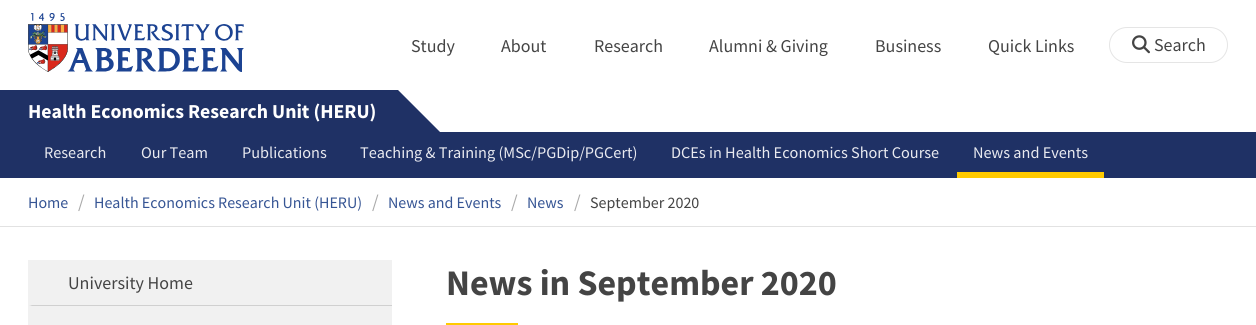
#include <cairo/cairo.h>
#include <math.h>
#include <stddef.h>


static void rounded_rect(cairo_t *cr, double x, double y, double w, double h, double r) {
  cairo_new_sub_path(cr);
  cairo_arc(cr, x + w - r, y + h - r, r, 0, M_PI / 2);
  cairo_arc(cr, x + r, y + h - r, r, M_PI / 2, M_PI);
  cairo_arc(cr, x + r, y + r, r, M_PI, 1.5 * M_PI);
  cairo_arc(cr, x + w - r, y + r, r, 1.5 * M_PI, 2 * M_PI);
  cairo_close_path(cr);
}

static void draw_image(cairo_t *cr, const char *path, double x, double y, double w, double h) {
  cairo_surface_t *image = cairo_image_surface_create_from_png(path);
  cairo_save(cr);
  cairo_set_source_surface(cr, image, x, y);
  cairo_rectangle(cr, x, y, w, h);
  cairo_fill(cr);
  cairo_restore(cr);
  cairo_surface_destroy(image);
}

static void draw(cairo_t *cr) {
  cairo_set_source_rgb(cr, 1, 1, 1);
  cairo_paint(cr);
  draw_image(cr, "images/1.png", 28, 13, 216, 59);
  rounded_rect(cr, 1109.5, 27.5, 118, 35, 17.5);
  cairo_set_source_rgb(cr, 229 / 255.0, 229 / 255.0, 229 / 255.0);
  cairo_set_line_width(cr, 1);
  cairo_stroke(cr);
  draw_image(cr, "images/2.png", 1132, 35, 18, 19);
  cairo_save(cr);
  cairo_rectangle(cr, 0, 90, 1256, 42);
  cairo_clip(cr);
  cairo_set_source_rgb(cr, 31 / 255.0, 49 / 255.0, 101 / 255.0);
  cairo_new_path(cr);
  cairo_move_to(cr, 516, 208);
  cairo_line_to(cr, -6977, 208);
  cairo_line_to(cr, -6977, 90);
  cairo_line_to(cr, 398, 90);
  cairo_close_path(cr);
  cairo_fill(cr);
  cairo_restore(cr);
  cairo_set_source_rgb(cr, 31 / 255.0, 49 / 255.0, 101 / 255.0);
  cairo_rectangle(cr, 0, 132, 1256, 46);
  cairo_fill(cr);
  cairo_set_source_rgb(cr, 1, 202 / 255.0, 0);
  cairo_rectangle(cr, 957, 172, 147, 6);
  cairo_fill(cr);
  cairo_set_source_rgb(cr, 226 / 255.0, 226 / 255.0, 226 / 255.0);
  cairo_rectangle(cr, 0, 226, 1256, 1);
  cairo_fill(cr);
  cairo_set_source_rgb(cr, 241 / 255.0, 241 / 255.0, 241 / 255.0);
  cairo_rectangle(cr, 28, 260, 364, 65);
  cairo_fill(cr);
  cairo_set_source_rgb(cr, 208 / 255.0, 208 / 255.0, 208 / 255.0);
  cairo_new_path(cr);
  cairo_move_to(cr, 392, 306);
  cairo_line_to(cr, 28, 306);
  cairo_line_to(cr, 32, 305);
  cairo_line_to(cr, 392, 305);
  cairo_close_path(cr);
  cairo_fill(cr);
  cairo_set_source_rgb(cr, 241 / 255.0, 241 / 255.0, 241 / 255.0);
  cairo_new_path(cr);
  cairo_move_to(cr, 28, 306);
  cairo_line_to(cr, 28, 260);
  cairo_line_to(cr, 32, 260);
  cairo_line_to(cr, 32, 305);
  cairo_close_path(cr);
  cairo_fill(cr);
  cairo_set_source_rgb(cr, 1, 202 / 255.0, 0);
  cairo_rectangle(cr, 446, 323, 72, 2);
  cairo_fill(cr);
  cairo_select_font_face(cr, "Source Sans Pro", CAIRO_FONT_SLANT_NORMAL, CAIRO_FONT_WEIGHT_NORMAL);
  cairo_set_font_size(cr, 18);
  cairo_set_source_rgb(cr, 68 / 255.0, 68 / 255.0, 68 / 255.0);
  cairo_move_to(cr, 411, 52);
  cairo_show_text(cr, "Study");
  cairo_move_to(cr, 501, 52);
  cairo_show_text(cr, "About");
  cairo_move_to(cr, 594, 52);
  cairo_show_text(cr, "Research");
  cairo_move_to(cr, 709, 52);
  cairo_show_text(cr, "Alumni & Giving");
  cairo_move_to(cr, 875, 52);
  cairo_show_text(cr, "Business");
  cairo_move_to(cr, 988, 52);
  cairo_show_text(cr, "Quick Links");
  cairo_move_to(cr, 1154, 51);
  cairo_show_text(cr, "Search");
  cairo_select_font_face(cr, "Source Sans Pro", CAIRO_FONT_SLANT_NORMAL, CAIRO_FONT_WEIGHT_BOLD);
  cairo_set_font_size(cr, 19.75);
  cairo_set_source_rgb(cr, 1, 1, 1);
  cairo_move_to(cr, 28, 118);
  cairo_show_text(cr, "Health Economics Research Unit (HERU)");
  cairo_select_font_face(cr, "Source Sans Pro", CAIRO_FONT_SLANT_NORMAL, CAIRO_FONT_WEIGHT_NORMAL);
  cairo_set_font_size(cr, 16.25);
  cairo_set_source_rgb(cr, 233 / 255.0, 234 / 255.0, 240 / 255.0);
  cairo_move_to(cr, 44, 158);
  cairo_show_text(cr, "Research");
  cairo_move_to(cr, 141, 158);
  cairo_show_text(cr, "Our Team");
  cairo_move_to(cr, 242, 158);
  cairo_show_text(cr, "Publications");
  cairo_move_to(cr, 360, 158);
  cairo_show_text(cr, "Teaching & Training (MSc/PGDip/PGCert)");
  cairo_move_to(cr, 671, 158);
  cairo_show_text(cr, "DCEs in Health Economics Short Course");
  cairo_move_to(cr, 973, 158);
  cairo_show_text(cr, "News and Events");
  cairo_set_font_size(cr, 16);
  cairo_set_source_rgb(cr, 54 / 255.0, 85 / 255.0, 148 / 255.0);
  cairo_move_to(cr, 28, 208);
  cairo_show_text(cr, "Home");
  cairo_set_font_size(cr, 19);
  cairo_set_source_rgb(cr, 170 / 255.0, 170 / 255.0, 170 / 255.0);
  cairo_move_to(cr, 78, 208);
  cairo_show_text(cr, "/");
  cairo_set_font_size(cr, 16);
  cairo_set_source_rgb(cr, 54 / 255.0, 85 / 255.0, 148 / 255.0);
  cairo_move_to(cr, 94, 208);
  cairo_show_text(cr, "Health Economics Research Unit (HERU)");
  cairo_set_font_size(cr, 19);
  cairo_set_source_rgb(cr, 170 / 255.0, 170 / 255.0, 170 / 255.0);
  cairo_move_to(cr, 372, 208);
  cairo_show_text(cr, "/");
  cairo_set_font_size(cr, 16);
  cairo_set_source_rgb(cr, 54 / 255.0, 85 / 255.0, 148 / 255.0);
  cairo_move_to(cr, 388, 208);
  cairo_show_text(cr, "News and Events");
  cairo_set_font_size(cr, 19);
  cairo_set_source_rgb(cr, 170 / 255.0, 170 / 255.0, 170 / 255.0);
  cairo_move_to(cr, 511, 208);
  cairo_show_text(cr, "/");
  cairo_set_font_size(cr, 16);
  cairo_set_source_rgb(cr, 54 / 255.0, 85 / 255.0, 148 / 255.0);
  cairo_move_to(cr, 527, 208);
  cairo_show_text(cr, "News");
  cairo_set_font_size(cr, 19);
  cairo_set_source_rgb(cr, 170 / 255.0, 170 / 255.0, 170 / 255.0);
  cairo_move_to(cr, 574, 208);
  cairo_show_text(cr, "/");
  cairo_set_font_size(cr, 16);
  cairo_set_source_rgb(cr, 68 / 255.0, 68 / 255.0, 68 / 255.0);
  cairo_move_to(cr, 590, 208);
  cairo_show_text(cr, "September 2020");
  cairo_set_font_size(cr, 18);
  cairo_move_to(cr, 68, 289);
  cairo_show_text(cr, "University Home");
  cairo_select_font_face(cr, "Source Sans Pro", CAIRO_FONT_SLANT_NORMAL, CAIRO_FONT_WEIGHT_BOLD);
  cairo_set_font_size(cr, 36);
  cairo_move_to(cr, 446, 295);
  cairo_show_text(cr, "News in September 2020");
}

int main(void) {
  cairo_surface_t *surface = cairo_image_surface_create(CAIRO_FORMAT_RGB24, 1256, 325);
  cairo_t *cr = cairo_create(surface);
  cairo_font_options_t *options = cairo_font_options_create();
  cairo_font_options_set_hint_metrics(options, CAIRO_HINT_METRICS_OFF);
  cairo_font_options_set_hint_style(options, CAIRO_HINT_STYLE_NONE);
  cairo_set_font_options(cr, options);
  cairo_set_miter_limit(cr, 4);
  draw(cr);
  cairo_surface_write_to_png(surface, "out.png");
  cairo_font_options_destroy(options);
  cairo_destroy(cr);
  cairo_surface_destroy(surface);
  return 0;
}
